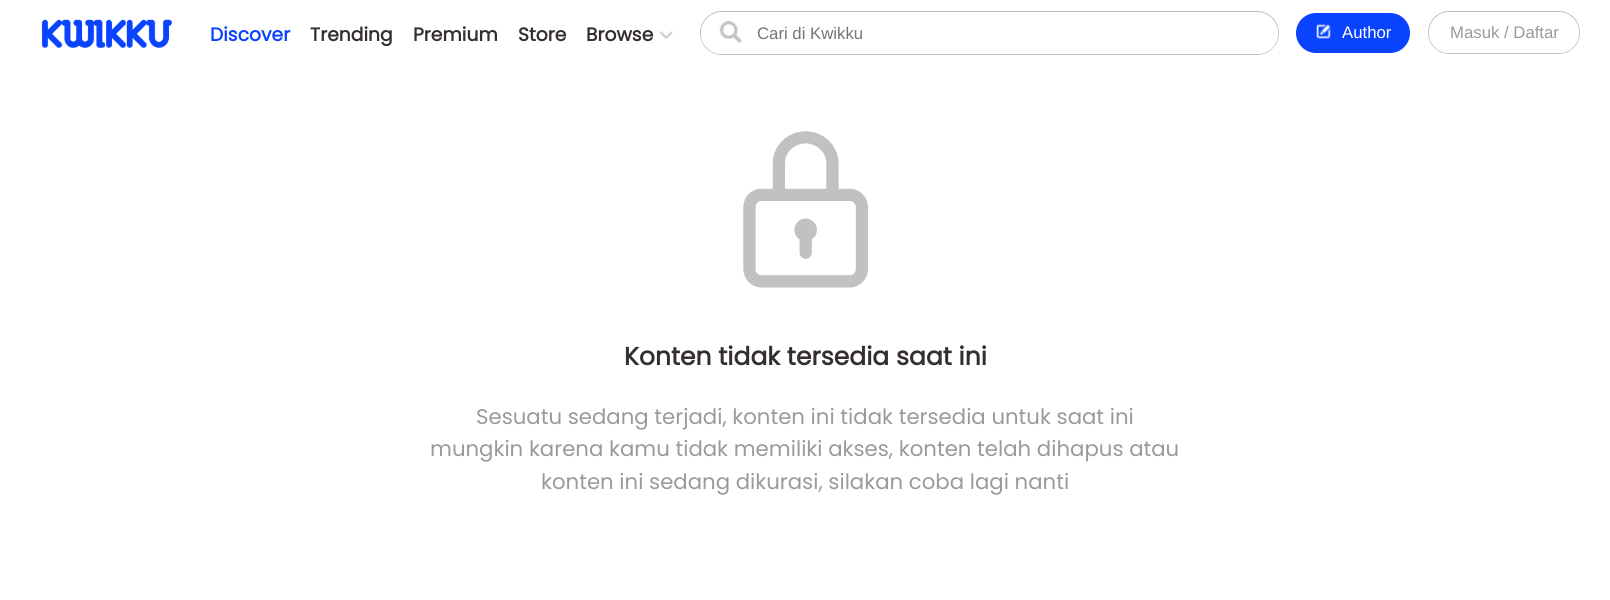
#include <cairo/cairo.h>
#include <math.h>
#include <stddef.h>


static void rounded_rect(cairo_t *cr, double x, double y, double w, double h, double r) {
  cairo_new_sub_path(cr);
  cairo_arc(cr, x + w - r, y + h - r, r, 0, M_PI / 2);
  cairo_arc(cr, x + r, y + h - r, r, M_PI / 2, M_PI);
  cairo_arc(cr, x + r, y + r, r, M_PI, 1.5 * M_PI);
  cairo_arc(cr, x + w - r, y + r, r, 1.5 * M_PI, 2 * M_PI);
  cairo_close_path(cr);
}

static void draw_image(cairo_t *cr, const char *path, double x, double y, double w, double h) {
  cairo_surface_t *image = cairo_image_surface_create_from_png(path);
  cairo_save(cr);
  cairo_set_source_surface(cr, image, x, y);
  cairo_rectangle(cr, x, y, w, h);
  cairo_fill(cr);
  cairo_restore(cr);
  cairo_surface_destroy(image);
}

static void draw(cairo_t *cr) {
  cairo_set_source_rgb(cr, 1, 1, 1);
  cairo_paint(cr);
  draw_image(cr, "images/1.png", 41, 19, 131, 29);
  draw_image(cr, "images/2.png", 659, 31, 14, 8);
  rounded_rect(cr, 700.5, 11.5, 578, 43, 21.5);
  cairo_set_source_rgb(cr, 192 / 255.0, 192 / 255.0, 192 / 255.0);
  cairo_set_line_width(cr, 1);
  cairo_stroke(cr);
  cairo_set_source_rgb(cr, 1, 1, 1);
  rounded_rect(cr, 701, 13, 577, 41, 20.5);
  cairo_fill(cr);
  draw_image(cr, "images/3.png", 719, 21, 23, 22);
  cairo_set_source_rgb(cr, 9 / 255.0, 67 / 255.0, 254 / 255.0);
  rounded_rect(cr, 1296, 13, 114, 40, 20);
  cairo_fill(cr);
  draw_image(cr, "images/4.png", 1316, 24, 15, 15);
  rounded_rect(cr, 1428.5, 11.5, 151, 42, 21);
  cairo_set_source_rgb(cr, 192 / 255.0, 192 / 255.0, 192 / 255.0);
  cairo_stroke(cr);
  cairo_set_source_rgb(cr, 1, 1, 1);
  rounded_rect(cr, 1429, 13, 150, 40, 20);
  cairo_fill(cr);
  draw_image(cr, "images/5.png", 743, 131, 125, 157);
  cairo_select_font_face(cr, "Poppins", CAIRO_FONT_SLANT_NORMAL, CAIRO_FONT_WEIGHT_BOLD);
  cairo_set_font_size(cr, 18.75);
  cairo_set_source_rgb(cr, 9 / 255.0, 67 / 255.0, 254 / 255.0);
  cairo_move_to(cr, 210, 41);
  cairo_show_text(cr, "Discover");
  cairo_set_source_rgb(cr, 52 / 255.0, 46 / 255.0, 52 / 255.0);
  cairo_move_to(cr, 310, 41);
  cairo_show_text(cr, "Trending");
  cairo_move_to(cr, 413, 41);
  cairo_show_text(cr, "Premium");
  cairo_move_to(cr, 518, 41);
  cairo_show_text(cr, "Store");
  cairo_move_to(cr, 586, 41);
  cairo_show_text(cr, "Browse");
  cairo_select_font_face(cr, "Liberation Sans", CAIRO_FONT_SLANT_NORMAL, CAIRO_FONT_WEIGHT_NORMAL);
  cairo_set_font_size(cr, 16.75);
  cairo_set_source_rgb(cr, 117 / 255.0, 117 / 255.0, 117 / 255.0);
  cairo_move_to(cr, 757, 39);
  cairo_show_text(cr, "Cari di Kwikku");
  cairo_set_source_rgb(cr, 1, 1, 1);
  cairo_move_to(cr, 1342, 38);
  cairo_show_text(cr, "Author");
  cairo_set_source_rgb(cr, 154 / 255.0, 154 / 255.0, 154 / 255.0);
  cairo_move_to(cr, 1450, 38);
  cairo_show_text(cr, "Masuk / Daftar");
  cairo_select_font_face(cr, "Poppins", CAIRO_FONT_SLANT_NORMAL, CAIRO_FONT_WEIGHT_BOLD);
  cairo_set_font_size(cr, 25);
  cairo_set_source_rgb(cr, 52 / 255.0, 46 / 255.0, 52 / 255.0);
  cairo_move_to(cr, 624, 365);
  cairo_show_text(cr, "Konten tidak tersedia saat ini");
  cairo_select_font_face(cr, "Poppins", CAIRO_FONT_SLANT_NORMAL, CAIRO_FONT_WEIGHT_NORMAL);
  cairo_set_font_size(cr, 21.25);
  cairo_set_source_rgb(cr, 154 / 255.0, 154 / 255.0, 154 / 255.0);
  cairo_move_to(cr, 476, 424);
  cairo_show_text(cr, "Sesuatu sedang terjadi, konten ini tidak tersedia untuk saat ini");
  cairo_move_to(cr, 430, 456);
  cairo_show_text(cr, "mungkin karena kamu tidak memiliki akses, konten telah dihapus atau");
  cairo_move_to(cr, 541, 489);
  cairo_show_text(cr, "konten ini sedang dikurasi, silakan coba lagi nanti");
}

int main(void) {
  cairo_surface_t *surface = cairo_image_surface_create(CAIRO_FORMAT_RGB24, 1610, 600);
  cairo_t *cr = cairo_create(surface);
  cairo_font_options_t *options = cairo_font_options_create();
  cairo_font_options_set_hint_metrics(options, CAIRO_HINT_METRICS_OFF);
  cairo_font_options_set_hint_style(options, CAIRO_HINT_STYLE_NONE);
  cairo_set_font_options(cr, options);
  cairo_set_miter_limit(cr, 4);
  draw(cr);
  cairo_surface_write_to_png(surface, "out.png");
  cairo_font_options_destroy(options);
  cairo_destroy(cr);
  cairo_surface_destroy(surface);
  return 0;
}
